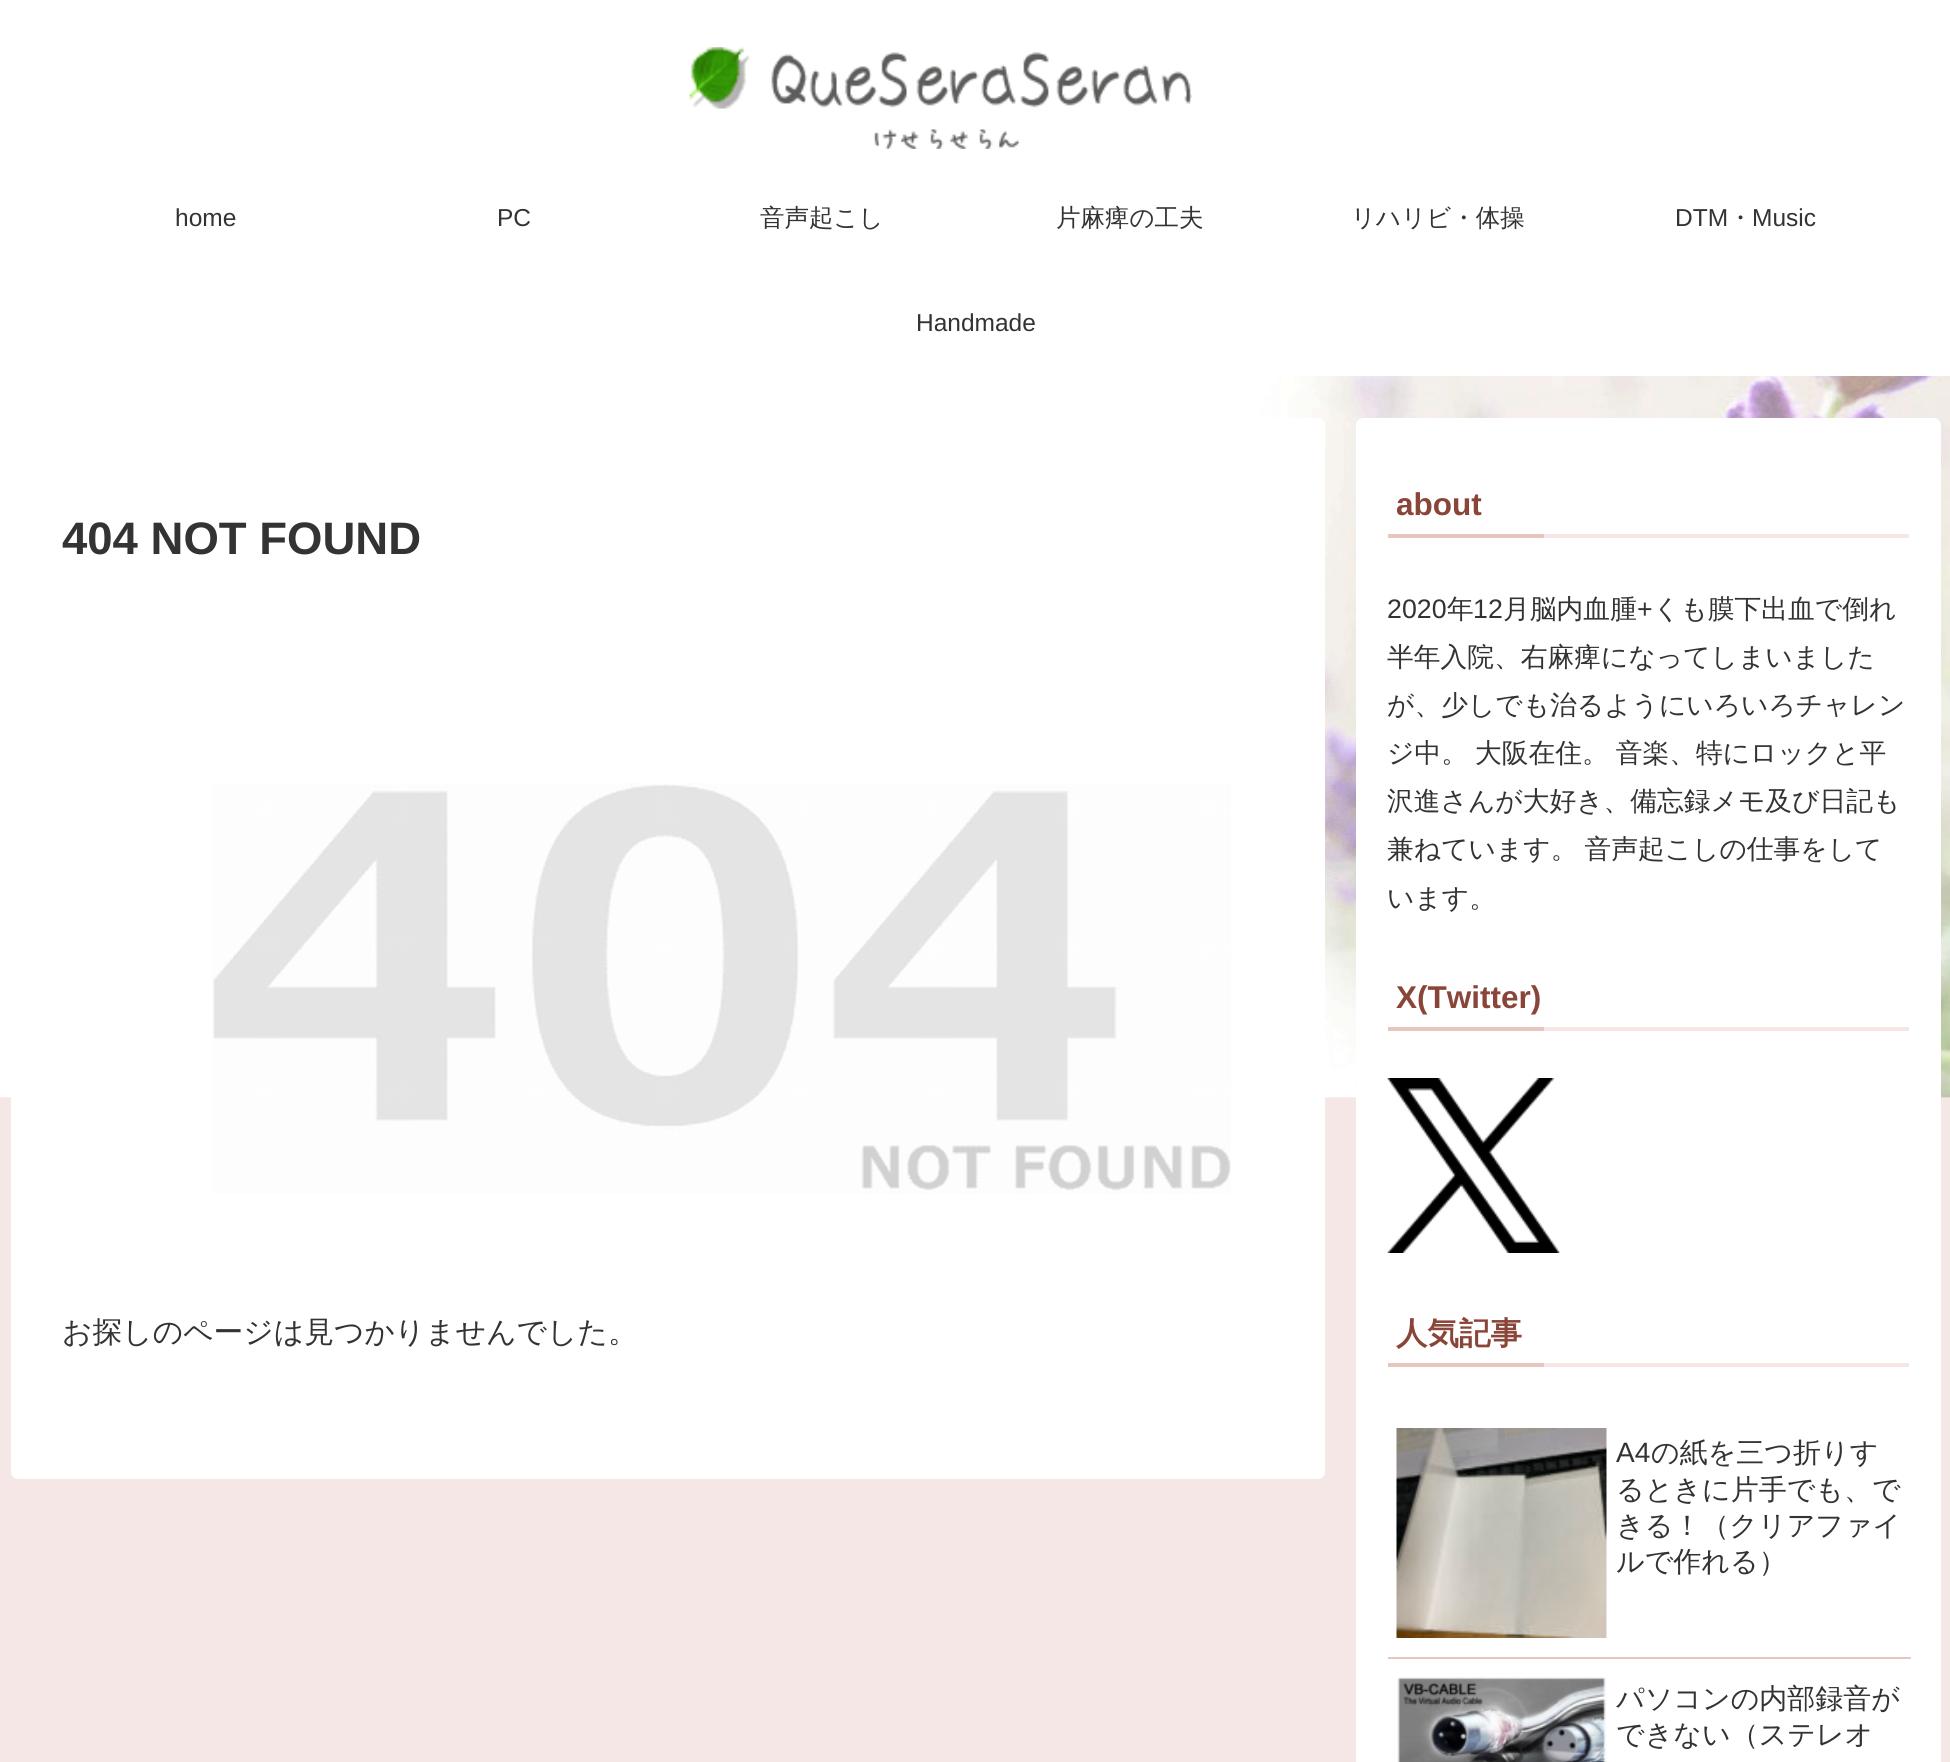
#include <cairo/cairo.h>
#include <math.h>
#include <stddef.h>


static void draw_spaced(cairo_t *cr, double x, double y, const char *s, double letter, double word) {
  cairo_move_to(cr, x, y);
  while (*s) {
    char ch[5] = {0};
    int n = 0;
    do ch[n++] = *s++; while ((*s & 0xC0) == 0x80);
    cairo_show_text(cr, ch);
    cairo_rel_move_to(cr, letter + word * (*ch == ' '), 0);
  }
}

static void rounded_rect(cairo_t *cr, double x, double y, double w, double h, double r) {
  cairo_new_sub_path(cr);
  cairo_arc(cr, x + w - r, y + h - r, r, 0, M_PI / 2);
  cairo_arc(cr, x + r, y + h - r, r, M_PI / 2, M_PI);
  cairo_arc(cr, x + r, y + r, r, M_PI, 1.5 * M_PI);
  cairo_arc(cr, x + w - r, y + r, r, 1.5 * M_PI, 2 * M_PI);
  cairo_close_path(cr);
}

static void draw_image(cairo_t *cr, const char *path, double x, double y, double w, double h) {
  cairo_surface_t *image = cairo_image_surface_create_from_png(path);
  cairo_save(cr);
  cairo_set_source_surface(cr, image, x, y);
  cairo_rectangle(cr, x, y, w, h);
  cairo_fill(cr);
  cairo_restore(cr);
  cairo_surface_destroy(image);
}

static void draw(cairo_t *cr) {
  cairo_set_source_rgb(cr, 244 / 255.0, 231 / 255.0, 229 / 255.0);
  cairo_paint(cr);
  draw_image(cr, "images/1.png", 0, 376, 1950, 722);
  cairo_set_source_rgb(cr, 1, 1, 1);
  cairo_rectangle(cr, 0, 0, 1950, 376);
  cairo_fill(cr);
  draw_image(cr, "images/2.png", 689, 47, 504, 102);
  rounded_rect(cr, 11, 418, 1314, 1061, 7);
  cairo_fill(cr);
  draw_image(cr, "images/3.png", 212, 783, 1019, 411);
  rounded_rect(cr, 1356, 418, 585, 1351, 7);
  cairo_fill(cr);
  cairo_set_source_rgb(cr, 244 / 255.0, 231 / 255.0, 229 / 255.0);
  cairo_rectangle(cr, 1544, 534, 365, 4);
  cairo_fill(cr);
  cairo_set_source_rgb(cr, 230 / 255.0, 199 / 255.0, 192 / 255.0);
  cairo_rectangle(cr, 1388, 534, 156, 4);
  cairo_fill(cr);
  cairo_set_source_rgb(cr, 244 / 255.0, 231 / 255.0, 229 / 255.0);
  cairo_rectangle(cr, 1544, 1027, 365, 4);
  cairo_fill(cr);
  cairo_set_source_rgb(cr, 230 / 255.0, 199 / 255.0, 192 / 255.0);
  cairo_rectangle(cr, 1388, 1027, 156, 4);
  cairo_fill(cr);
  draw_image(cr, "images/4.png", 1387, 1078, 173, 175);
  cairo_set_source_rgb(cr, 244 / 255.0, 231 / 255.0, 229 / 255.0);
  cairo_rectangle(cr, 1544, 1363, 365, 4);
  cairo_fill(cr);
  cairo_set_source_rgb(cr, 230 / 255.0, 199 / 255.0, 192 / 255.0);
  cairo_rectangle(cr, 1388, 1363, 156, 4);
  cairo_fill(cr);
  cairo_rectangle(cr, 1388, 1657, 523, 2);
  cairo_fill(cr);
  draw_image(cr, "images/5.png", 1396, 1428, 211, 210);
  draw_image(cr, "images/6.png", 1397, 1677, 210, 85);
  cairo_select_font_face(cr, "Liberation Sans", CAIRO_FONT_SLANT_NORMAL, CAIRO_FONT_WEIGHT_NORMAL);
  cairo_set_font_size(cr, 24.5);
  cairo_set_source_rgb(cr, 51 / 255.0, 51 / 255.0, 51 / 255.0);
  cairo_move_to(cr, 175, 226);
  cairo_show_text(cr, "home");
  cairo_move_to(cr, 497, 226);
  cairo_show_text(cr, "PC");
  cairo_select_font_face(cr, "WenQuanYi Zen Hei Medium", CAIRO_FONT_SLANT_NORMAL, CAIRO_FONT_WEIGHT_NORMAL);
  cairo_move_to(cr, 760, 226);
  cairo_show_text(cr, "音声起こし");
  cairo_move_to(cr, 1056, 226);
  cairo_show_text(cr, "片麻痺の工夫");
  cairo_move_to(cr, 1351, 226);
  cairo_show_text(cr, "リハリビ・体操");
  cairo_select_font_face(cr, "Liberation Sans", CAIRO_FONT_SLANT_NORMAL, CAIRO_FONT_WEIGHT_NORMAL);
  cairo_move_to(cr, 1675, 226);
  cairo_show_text(cr, "DTM");
  cairo_select_font_face(cr, "WenQuanYi Zen Hei Medium", CAIRO_FONT_SLANT_NORMAL, CAIRO_FONT_WEIGHT_NORMAL);
  cairo_move_to(cr, 1728, 226);
  cairo_show_text(cr, "・");
  cairo_select_font_face(cr, "Liberation Sans", CAIRO_FONT_SLANT_NORMAL, CAIRO_FONT_WEIGHT_NORMAL);
  cairo_move_to(cr, 1752, 226);
  cairo_show_text(cr, "Music");
  cairo_move_to(cr, 916, 331);
  cairo_show_text(cr, "Handmade");
  cairo_select_font_face(cr, "Liberation Sans", CAIRO_FONT_SLANT_NORMAL, CAIRO_FONT_WEIGHT_BOLD);
  cairo_set_font_size(cr, 45.5);
  cairo_move_to(cr, 62, 554);
  cairo_show_text(cr, "404 NOT FOUND");
  cairo_select_font_face(cr, "WenQuanYi Zen Hei Medium", CAIRO_FONT_SLANT_NORMAL, CAIRO_FONT_WEIGHT_NORMAL);
  cairo_set_font_size(cr, 29.75);
  cairo_move_to(cr, 62, 1342);
  cairo_show_text(cr, "お探しのページは見つかりませんでした。");
  cairo_select_font_face(cr, "Liberation Sans", CAIRO_FONT_SLANT_NORMAL, CAIRO_FONT_WEIGHT_BOLD);
  cairo_set_font_size(cr, 31.5);
  cairo_set_source_rgb(cr, 137 / 255.0, 69 / 255.0, 55 / 255.0);
  cairo_move_to(cr, 1396, 515);
  cairo_show_text(cr, "about");
  cairo_select_font_face(cr, "Liberation Sans", CAIRO_FONT_SLANT_NORMAL, CAIRO_FONT_WEIGHT_NORMAL);
  cairo_set_font_size(cr, 26.75);
  cairo_set_source_rgb(cr, 51 / 255.0, 51 / 255.0, 51 / 255.0);
  cairo_move_to(cr, 1387, 618);
  cairo_show_text(cr, "2020");
  cairo_select_font_face(cr, "WenQuanYi Zen Hei Medium", CAIRO_FONT_SLANT_NORMAL, CAIRO_FONT_WEIGHT_NORMAL);
  cairo_move_to(cr, 1447, 618);
  cairo_show_text(cr, "年");
  cairo_select_font_face(cr, "Liberation Sans", CAIRO_FONT_SLANT_NORMAL, CAIRO_FONT_WEIGHT_NORMAL);
  cairo_move_to(cr, 1473, 618);
  cairo_show_text(cr, "12");
  cairo_select_font_face(cr, "WenQuanYi Zen Hei Medium", CAIRO_FONT_SLANT_NORMAL, CAIRO_FONT_WEIGHT_NORMAL);
  cairo_move_to(cr, 1503, 618);
  cairo_show_text(cr, "月脳内血腫");
  cairo_select_font_face(cr, "Liberation Sans", CAIRO_FONT_SLANT_NORMAL, CAIRO_FONT_WEIGHT_NORMAL);
  cairo_move_to(cr, 1637, 618);
  cairo_show_text(cr, "+");
  cairo_select_font_face(cr, "WenQuanYi Zen Hei Medium", CAIRO_FONT_SLANT_NORMAL, CAIRO_FONT_WEIGHT_NORMAL);
  cairo_move_to(cr, 1653, 618);
  cairo_show_text(cr, "くも膜下出血で倒れ");
  cairo_move_to(cr, 1387, 666);
  cairo_show_text(cr, "半年入院、右麻痺になってしまいました");
  cairo_move_to(cr, 1387, 714);
  cairo_show_text(cr, "が、少しでも治るようにいろいろチャレン");
  draw_spaced(cr, 1387, 762, "ジ中。 大阪在住。 音楽、特にロックと平", 0, -1);
  cairo_move_to(cr, 1387, 810);
  cairo_show_text(cr, "沢進さんが大好き、備忘録メモ及び日記も");
  draw_spaced(cr, 1387, 858, "兼ねています。 音声起こしの仕事をして", 0, -1);
  cairo_move_to(cr, 1387, 907);
  cairo_show_text(cr, "います。");
  cairo_select_font_face(cr, "Liberation Sans", CAIRO_FONT_SLANT_NORMAL, CAIRO_FONT_WEIGHT_BOLD);
  cairo_set_font_size(cr, 31.5);
  cairo_set_source_rgb(cr, 137 / 255.0, 69 / 255.0, 55 / 255.0);
  cairo_move_to(cr, 1396, 1008);
  cairo_show_text(cr, "X(Twitter)");
  cairo_select_font_face(cr, "WenQuanYi Zen Hei", CAIRO_FONT_SLANT_NORMAL, CAIRO_FONT_WEIGHT_BOLD);
  cairo_move_to(cr, 1396, 1344);
  cairo_show_text(cr, "人気記事");
  cairo_select_font_face(cr, "Liberation Sans", CAIRO_FONT_SLANT_NORMAL, CAIRO_FONT_WEIGHT_NORMAL);
  cairo_set_font_size(cr, 28);
  cairo_set_source_rgb(cr, 51 / 255.0, 51 / 255.0, 51 / 255.0);
  cairo_move_to(cr, 1616, 1462);
  cairo_show_text(cr, "A4");
  cairo_select_font_face(cr, "WenQuanYi Zen Hei Medium", CAIRO_FONT_SLANT_NORMAL, CAIRO_FONT_WEIGHT_NORMAL);
  cairo_move_to(cr, 1651, 1462);
  cairo_show_text(cr, "の紙を三つ折りす");
  cairo_move_to(cr, 1616, 1499);
  cairo_show_text(cr, "るときに片手でも、で");
  cairo_move_to(cr, 1616, 1535);
  cairo_show_text(cr, "きる！（クリアファイ");
  cairo_move_to(cr, 1616, 1571);
  cairo_show_text(cr, "ルで作れる）");
  cairo_move_to(cr, 1616, 1708);
  cairo_show_text(cr, "パソコンの内部録音が");
  cairo_move_to(cr, 1616, 1744);
  cairo_show_text(cr, "できない（ステレオ");
}

int main(void) {
  cairo_surface_t *surface = cairo_image_surface_create(CAIRO_FORMAT_RGB24, 1950, 1762);
  cairo_t *cr = cairo_create(surface);
  cairo_font_options_t *options = cairo_font_options_create();
  cairo_font_options_set_hint_metrics(options, CAIRO_HINT_METRICS_OFF);
  cairo_font_options_set_hint_style(options, CAIRO_HINT_STYLE_NONE);
  cairo_set_font_options(cr, options);
  cairo_set_miter_limit(cr, 4);
  draw(cr);
  cairo_surface_write_to_png(surface, "out.png");
  cairo_font_options_destroy(options);
  cairo_destroy(cr);
  cairo_surface_destroy(surface);
  return 0;
}
